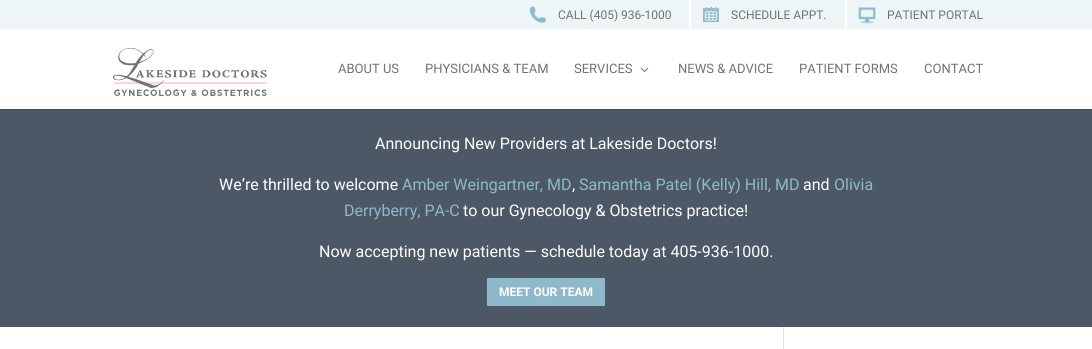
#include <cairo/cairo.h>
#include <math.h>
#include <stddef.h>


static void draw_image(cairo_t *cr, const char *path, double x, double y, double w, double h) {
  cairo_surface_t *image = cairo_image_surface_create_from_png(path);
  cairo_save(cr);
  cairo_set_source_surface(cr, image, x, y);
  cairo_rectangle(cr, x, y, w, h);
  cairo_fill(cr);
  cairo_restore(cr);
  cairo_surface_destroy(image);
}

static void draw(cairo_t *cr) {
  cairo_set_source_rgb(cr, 1, 1, 1);
  cairo_paint(cr);
  cairo_set_source_rgb(cr, 238 / 255.0, 245 / 255.0, 247 / 255.0);
  cairo_rectangle(cr, 0, 0, 1092, 29);
  cairo_fill(cr);
  draw_image(cr, "images/1.png", 530, 6, 16, 17);
  cairo_set_source_rgb(cr, 1, 1, 1);
  cairo_rectangle(cr, 689, 0, 2, 29);
  cairo_fill(cr);
  draw_image(cr, "images/2.png", 703, 7, 16, 15);
  cairo_rectangle(cr, 845, 0, 2, 29);
  cairo_fill(cr);
  draw_image(cr, "images/3.png", 858, 7, 18, 17);
  cairo_set_source_rgb(cr, 68 / 255.0, 79 / 255.0, 92 / 255.0);
  cairo_rectangle(cr, 0, 109, 1092, 1);
  cairo_fill(cr);
  draw_image(cr, "images/4.png", 113, 48, 154, 48);
  draw_image(cr, "images/5.png", 640, 67, 9, 5);
  cairo_set_source_rgb(cr, 76 / 255.0, 88 / 255.0, 102 / 255.0);
  cairo_rectangle(cr, 0, 110, 1092, 217);
  cairo_fill(cr);
  cairo_set_source_rgb(cr, 141 / 255.0, 185 / 255.0, 202 / 255.0);
  cairo_rectangle(cr, 487, 278, 118, 28);
  cairo_fill(cr);
  cairo_set_source_rgb(cr, 226 / 255.0, 226 / 255.0, 226 / 255.0);
  cairo_rectangle(cr, 783, 327, 1, 22);
  cairo_fill(cr);
  cairo_select_font_face(cr, "Roboto", CAIRO_FONT_SLANT_NORMAL, CAIRO_FONT_WEIGHT_NORMAL);
  cairo_set_font_size(cr, 12);
  cairo_set_source_rgb(cr, 112 / 255.0, 115 / 255.0, 114 / 255.0);
  cairo_move_to(cr, 558, 19);
  cairo_show_text(cr, "CALL (405) 936-1000");
  cairo_move_to(cr, 731, 19);
  cairo_show_text(cr, "SCHEDULE APPT.");
  cairo_move_to(cr, 887, 19);
  cairo_show_text(cr, "PATIENT PORTAL");
  cairo_set_font_size(cr, 13);
  cairo_move_to(cr, 338, 73);
  cairo_show_text(cr, "ABOUT US");
  cairo_move_to(cr, 425, 73);
  cairo_show_text(cr, "PHYSICIANS & TEAM");
  cairo_move_to(cr, 574, 73);
  cairo_show_text(cr, "SERVICES");
  cairo_move_to(cr, 678, 73);
  cairo_show_text(cr, "NEWS & ADVICE");
  cairo_move_to(cr, 799, 73);
  cairo_show_text(cr, "PATIENT FORMS");
  cairo_move_to(cr, 924, 73);
  cairo_show_text(cr, "CONTACT");
  cairo_set_font_size(cr, 16);
  cairo_set_source_rgb(cr, 1, 1, 1);
  cairo_move_to(cr, 375, 149);
  cairo_show_text(cr, "Announcing New Providers at Lakeside Doctors!");
  cairo_move_to(cr, 219, 190);
  cairo_show_text(cr, "We’re thrilled to welcome");
  cairo_set_source_rgb(cr, 141 / 255.0, 185 / 255.0, 202 / 255.0);
  cairo_move_to(cr, 402, 190);
  cairo_show_text(cr, "Amber Weingartner, MD");
  cairo_set_source_rgb(cr, 1, 1, 1);
  cairo_move_to(cr, 572, 190);
  cairo_show_text(cr, ",");
  cairo_set_source_rgb(cr, 141 / 255.0, 185 / 255.0, 202 / 255.0);
  cairo_move_to(cr, 579, 190);
  cairo_show_text(cr, "Samantha Patel (Kelly) Hill, MD");
  cairo_set_source_rgb(cr, 1, 1, 1);
  cairo_move_to(cr, 803, 190);
  cairo_show_text(cr, "and");
  cairo_set_source_rgb(cr, 141 / 255.0, 185 / 255.0, 202 / 255.0);
  cairo_move_to(cr, 834, 190);
  cairo_show_text(cr, "Olivia");
  cairo_move_to(cr, 344, 216);
  cairo_show_text(cr, "Derryberry, PA-C");
  cairo_set_source_rgb(cr, 1, 1, 1);
  cairo_move_to(cr, 463, 216);
  cairo_show_text(cr, "to our Gynecology & Obstetrics practice!");
  cairo_move_to(cr, 319, 257);
  cairo_show_text(cr, "Now accepting new patients — schedule today at 405-936-1000.");
  cairo_select_font_face(cr, "Roboto", CAIRO_FONT_SLANT_NORMAL, CAIRO_FONT_WEIGHT_BOLD);
  cairo_set_font_size(cr, 12);
  cairo_move_to(cr, 499, 296);
  cairo_show_text(cr, "MEET OUR TEAM");
}

int main(void) {
  cairo_surface_t *surface = cairo_image_surface_create(CAIRO_FORMAT_RGB24, 1092, 349);
  cairo_t *cr = cairo_create(surface);
  cairo_font_options_t *options = cairo_font_options_create();
  cairo_font_options_set_hint_metrics(options, CAIRO_HINT_METRICS_OFF);
  cairo_font_options_set_hint_style(options, CAIRO_HINT_STYLE_NONE);
  cairo_set_font_options(cr, options);
  cairo_set_miter_limit(cr, 4);
  draw(cr);
  cairo_surface_write_to_png(surface, "out.png");
  cairo_font_options_destroy(options);
  cairo_destroy(cr);
  cairo_surface_destroy(surface);
  return 0;
}
